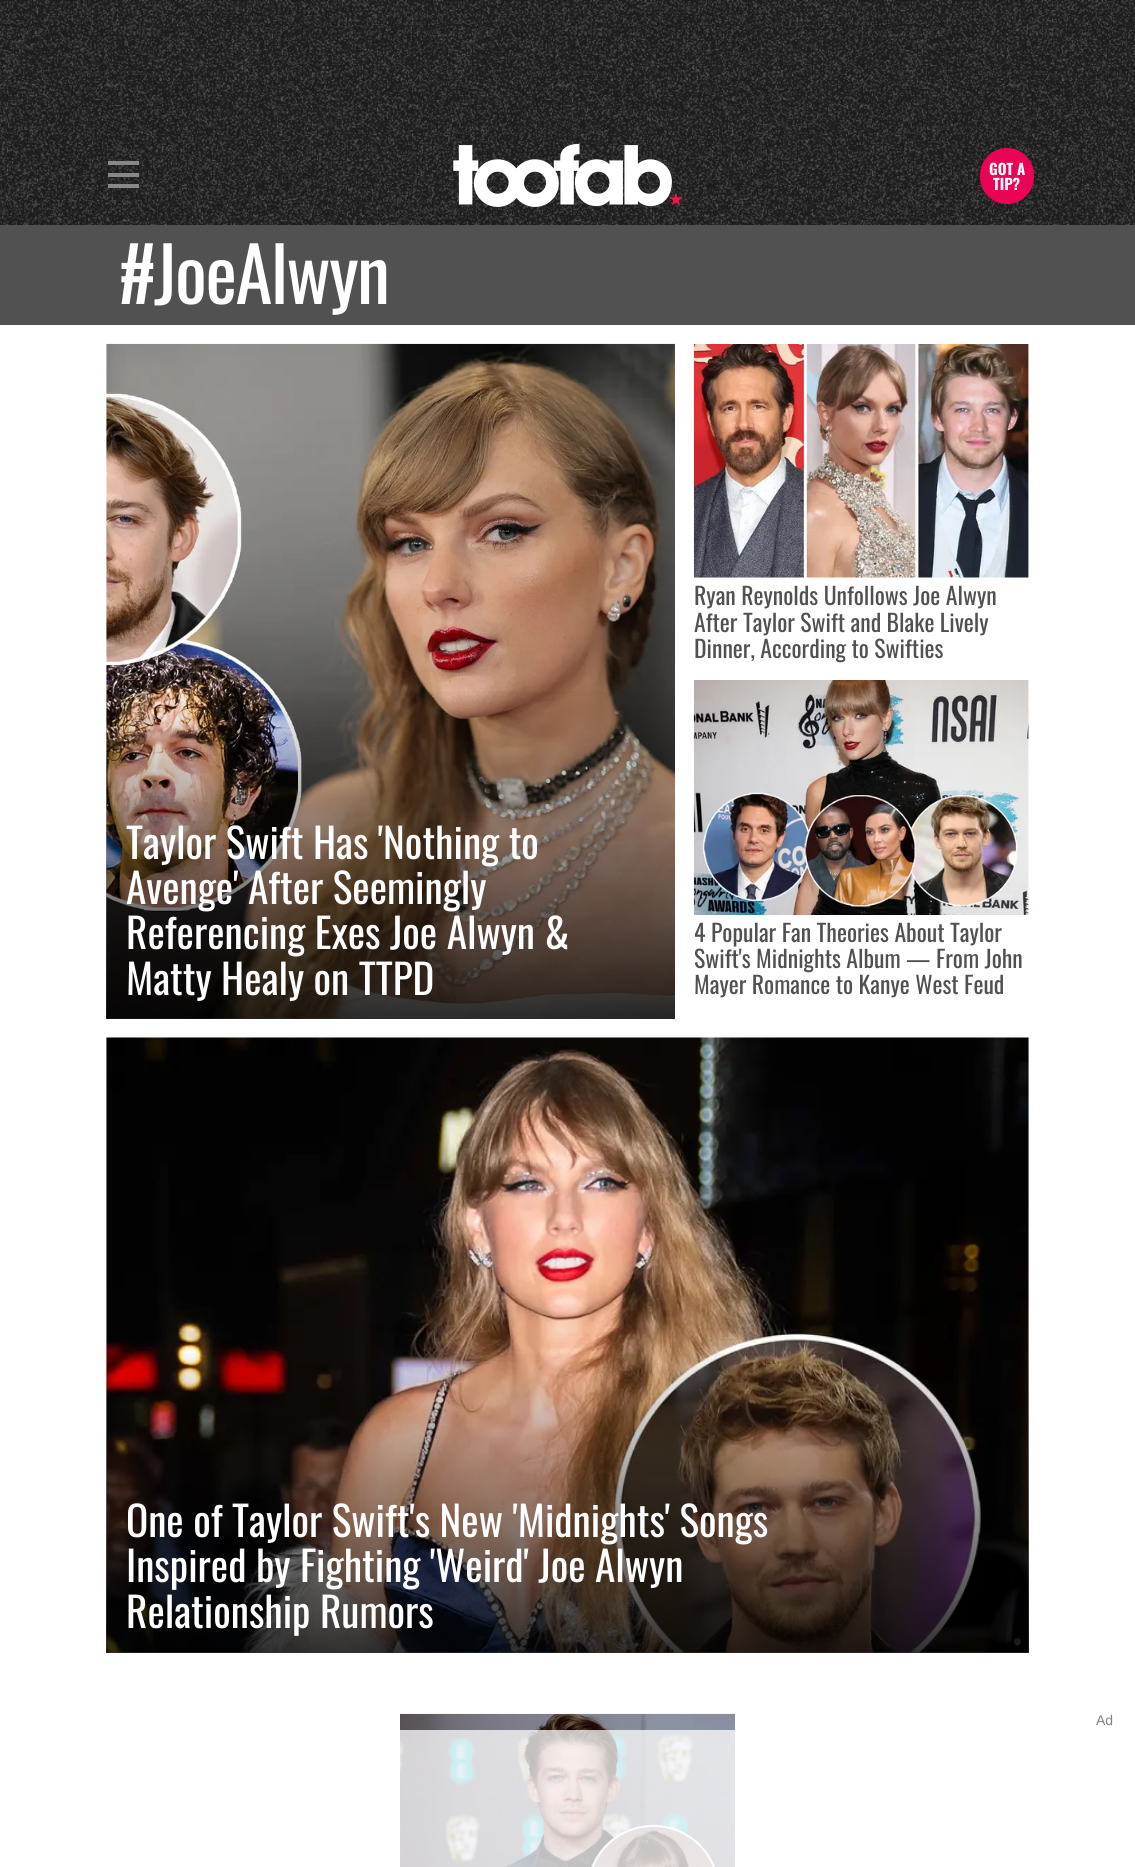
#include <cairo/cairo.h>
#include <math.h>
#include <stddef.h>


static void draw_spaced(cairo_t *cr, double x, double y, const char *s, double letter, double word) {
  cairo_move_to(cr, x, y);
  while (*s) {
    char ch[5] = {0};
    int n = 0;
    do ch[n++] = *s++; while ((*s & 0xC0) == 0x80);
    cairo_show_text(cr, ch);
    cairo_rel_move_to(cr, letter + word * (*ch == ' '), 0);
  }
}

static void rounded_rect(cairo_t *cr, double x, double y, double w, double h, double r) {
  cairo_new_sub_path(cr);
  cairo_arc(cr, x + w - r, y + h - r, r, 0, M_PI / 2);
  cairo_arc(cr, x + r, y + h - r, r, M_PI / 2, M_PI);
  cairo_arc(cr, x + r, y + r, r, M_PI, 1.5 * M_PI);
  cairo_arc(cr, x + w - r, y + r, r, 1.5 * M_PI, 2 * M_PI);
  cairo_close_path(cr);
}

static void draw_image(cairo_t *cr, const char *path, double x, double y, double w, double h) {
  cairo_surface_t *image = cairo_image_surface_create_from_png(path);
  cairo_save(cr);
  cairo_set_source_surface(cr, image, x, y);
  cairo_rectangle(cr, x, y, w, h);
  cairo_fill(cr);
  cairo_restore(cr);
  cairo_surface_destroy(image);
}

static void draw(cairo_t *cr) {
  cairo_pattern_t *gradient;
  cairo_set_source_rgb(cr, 1, 1, 1);
  cairo_paint(cr);
  draw_image(cr, "images/1.png", 0, 0, 1135, 225);
  cairo_set_source_rgb(cr, 136 / 255.0, 136 / 255.0, 136 / 255.0);
  cairo_rectangle(cr, 108, 161, 31, 4);
  cairo_fill(cr);
  cairo_rectangle(cr, 108, 173, 31, 4);
  cairo_fill(cr);
  cairo_rectangle(cr, 108, 184, 31, 4);
  cairo_fill(cr);
  draw_image(cr, "images/2.png", 453, 143, 230, 64);
  cairo_set_source_rgb(cr, 235 / 255.0, 2 / 255.0, 84 / 255.0);
  rounded_rect(cr, 980, 148, 54, 56, 27);
  cairo_fill(cr);
  cairo_set_source_rgb(cr, 81 / 255.0, 81 / 255.0, 81 / 255.0);
  cairo_rectangle(cr, 0, 225, 1135, 100);
  cairo_fill(cr);
  draw_image(cr, "images/3.png", 106, 343, 569, 676);
  gradient = cairo_pattern_create_linear(391, 344, 391, 1019);
  cairo_pattern_add_color_stop_rgba(gradient, 0.5, 0, 0, 0, 0);
  cairo_pattern_add_color_stop_rgba(gradient, 1, 0, 0, 0, 0.8);
  cairo_set_source(cr, gradient);
  cairo_pattern_destroy(gradient);
  cairo_rectangle(cr, 106, 691, 569, 328);
  cairo_fill(cr);
  draw_image(cr, "images/4.png", 693, 344, 336, 234);
  draw_image(cr, "images/5.png", 693, 680, 336, 235);
  draw_image(cr, "images/6.png", 106, 1037, 923, 616);
  gradient = cairo_pattern_create_linear(567, 1038, 568, 1653);
  cairo_pattern_add_color_stop_rgba(gradient, 0.5, 0, 0, 0, 0);
  cairo_pattern_add_color_stop_rgba(gradient, 1, 0, 0, 0, 0.8);
  cairo_set_source(cr, gradient);
  cairo_pattern_destroy(gradient);
  cairo_rectangle(cr, 106, 1353, 923, 300);
  cairo_fill(cr);
  draw_image(cr, "images/7.png", 400, 1713, 335, 154);
  cairo_set_source_rgba(cr, 1, 1, 1, 0.75);
  cairo_rectangle(cr, 400, 1730, 335, 137);
  cairo_fill(cr);
  cairo_select_font_face(cr, "Oswald", CAIRO_FONT_SLANT_NORMAL, CAIRO_FONT_WEIGHT_BOLD);
  cairo_set_font_size(cr, 15);
  cairo_set_source_rgb(cr, 1, 1, 1);
  cairo_move_to(cr, 989, 175);
  cairo_show_text(cr, "GOT A");
  cairo_move_to(cr, 993, 190);
  cairo_show_text(cr, "TIP?");
  cairo_select_font_face(cr, "Oswald", CAIRO_FONT_SLANT_NORMAL, CAIRO_FONT_WEIGHT_NORMAL);
  cairo_set_font_size(cr, 75);
  draw_spaced(cr, 119, 304, "#JoeAlwyn", -1.5, 0);
  cairo_set_font_size(cr, 41.25);
  cairo_move_to(cr, 126, 859);
  cairo_show_text(cr, "Taylor Swift Has 'Nothing to");
  cairo_move_to(cr, 126, 904);
  cairo_show_text(cr, "Avenge' After Seemingly");
  cairo_move_to(cr, 126, 949);
  cairo_show_text(cr, "Referencing Exes Joe Alwyn &");
  cairo_move_to(cr, 126, 995);
  cairo_show_text(cr, "Matty Healy on TTPD");
  cairo_set_font_size(cr, 23.75);
  cairo_set_source_rgb(cr, 81 / 255.0, 81 / 255.0, 81 / 255.0);
  cairo_move_to(cr, 694, 605);
  cairo_show_text(cr, "Ryan Reynolds Unfollows Joe Alwyn");
  cairo_move_to(cr, 694, 632);
  cairo_show_text(cr, "After Taylor Swift and Blake Lively");
  cairo_move_to(cr, 694, 658);
  cairo_show_text(cr, "Dinner, According to Swifties");
  cairo_move_to(cr, 694, 942);
  cairo_show_text(cr, "4 Popular Fan Theories About Taylor");
  cairo_move_to(cr, 694, 968);
  cairo_show_text(cr, "Swift's Midnights Album — From John");
  cairo_move_to(cr, 694, 994);
  cairo_show_text(cr, "Mayer Romance to Kanye West Feud");
  cairo_set_font_size(cr, 41.25);
  cairo_set_source_rgb(cr, 1, 1, 1);
  cairo_move_to(cr, 126, 1537);
  cairo_show_text(cr, "One of Taylor Swift's New 'Midnights' Songs");
  cairo_move_to(cr, 126, 1582);
  cairo_show_text(cr, "Inspired by Fighting 'Weird' Joe Alwyn");
  cairo_move_to(cr, 126, 1628);
  cairo_show_text(cr, "Relationship Rumors");
  cairo_select_font_face(cr, "Liberation Sans", CAIRO_FONT_SLANT_NORMAL, CAIRO_FONT_WEIGHT_NORMAL);
  cairo_set_font_size(cr, 14);
  cairo_set_source_rgb(cr, 128 / 255.0, 128 / 255.0, 128 / 255.0);
  cairo_move_to(cr, 1096, 1725);
  cairo_show_text(cr, "Ad");
}

int main(void) {
  cairo_surface_t *surface = cairo_image_surface_create(CAIRO_FORMAT_RGB24, 1135, 1867);
  cairo_t *cr = cairo_create(surface);
  cairo_font_options_t *options = cairo_font_options_create();
  cairo_font_options_set_hint_metrics(options, CAIRO_HINT_METRICS_OFF);
  cairo_font_options_set_hint_style(options, CAIRO_HINT_STYLE_NONE);
  cairo_set_font_options(cr, options);
  cairo_set_miter_limit(cr, 4);
  draw(cr);
  cairo_surface_write_to_png(surface, "out.png");
  cairo_font_options_destroy(options);
  cairo_destroy(cr);
  cairo_surface_destroy(surface);
  return 0;
}
